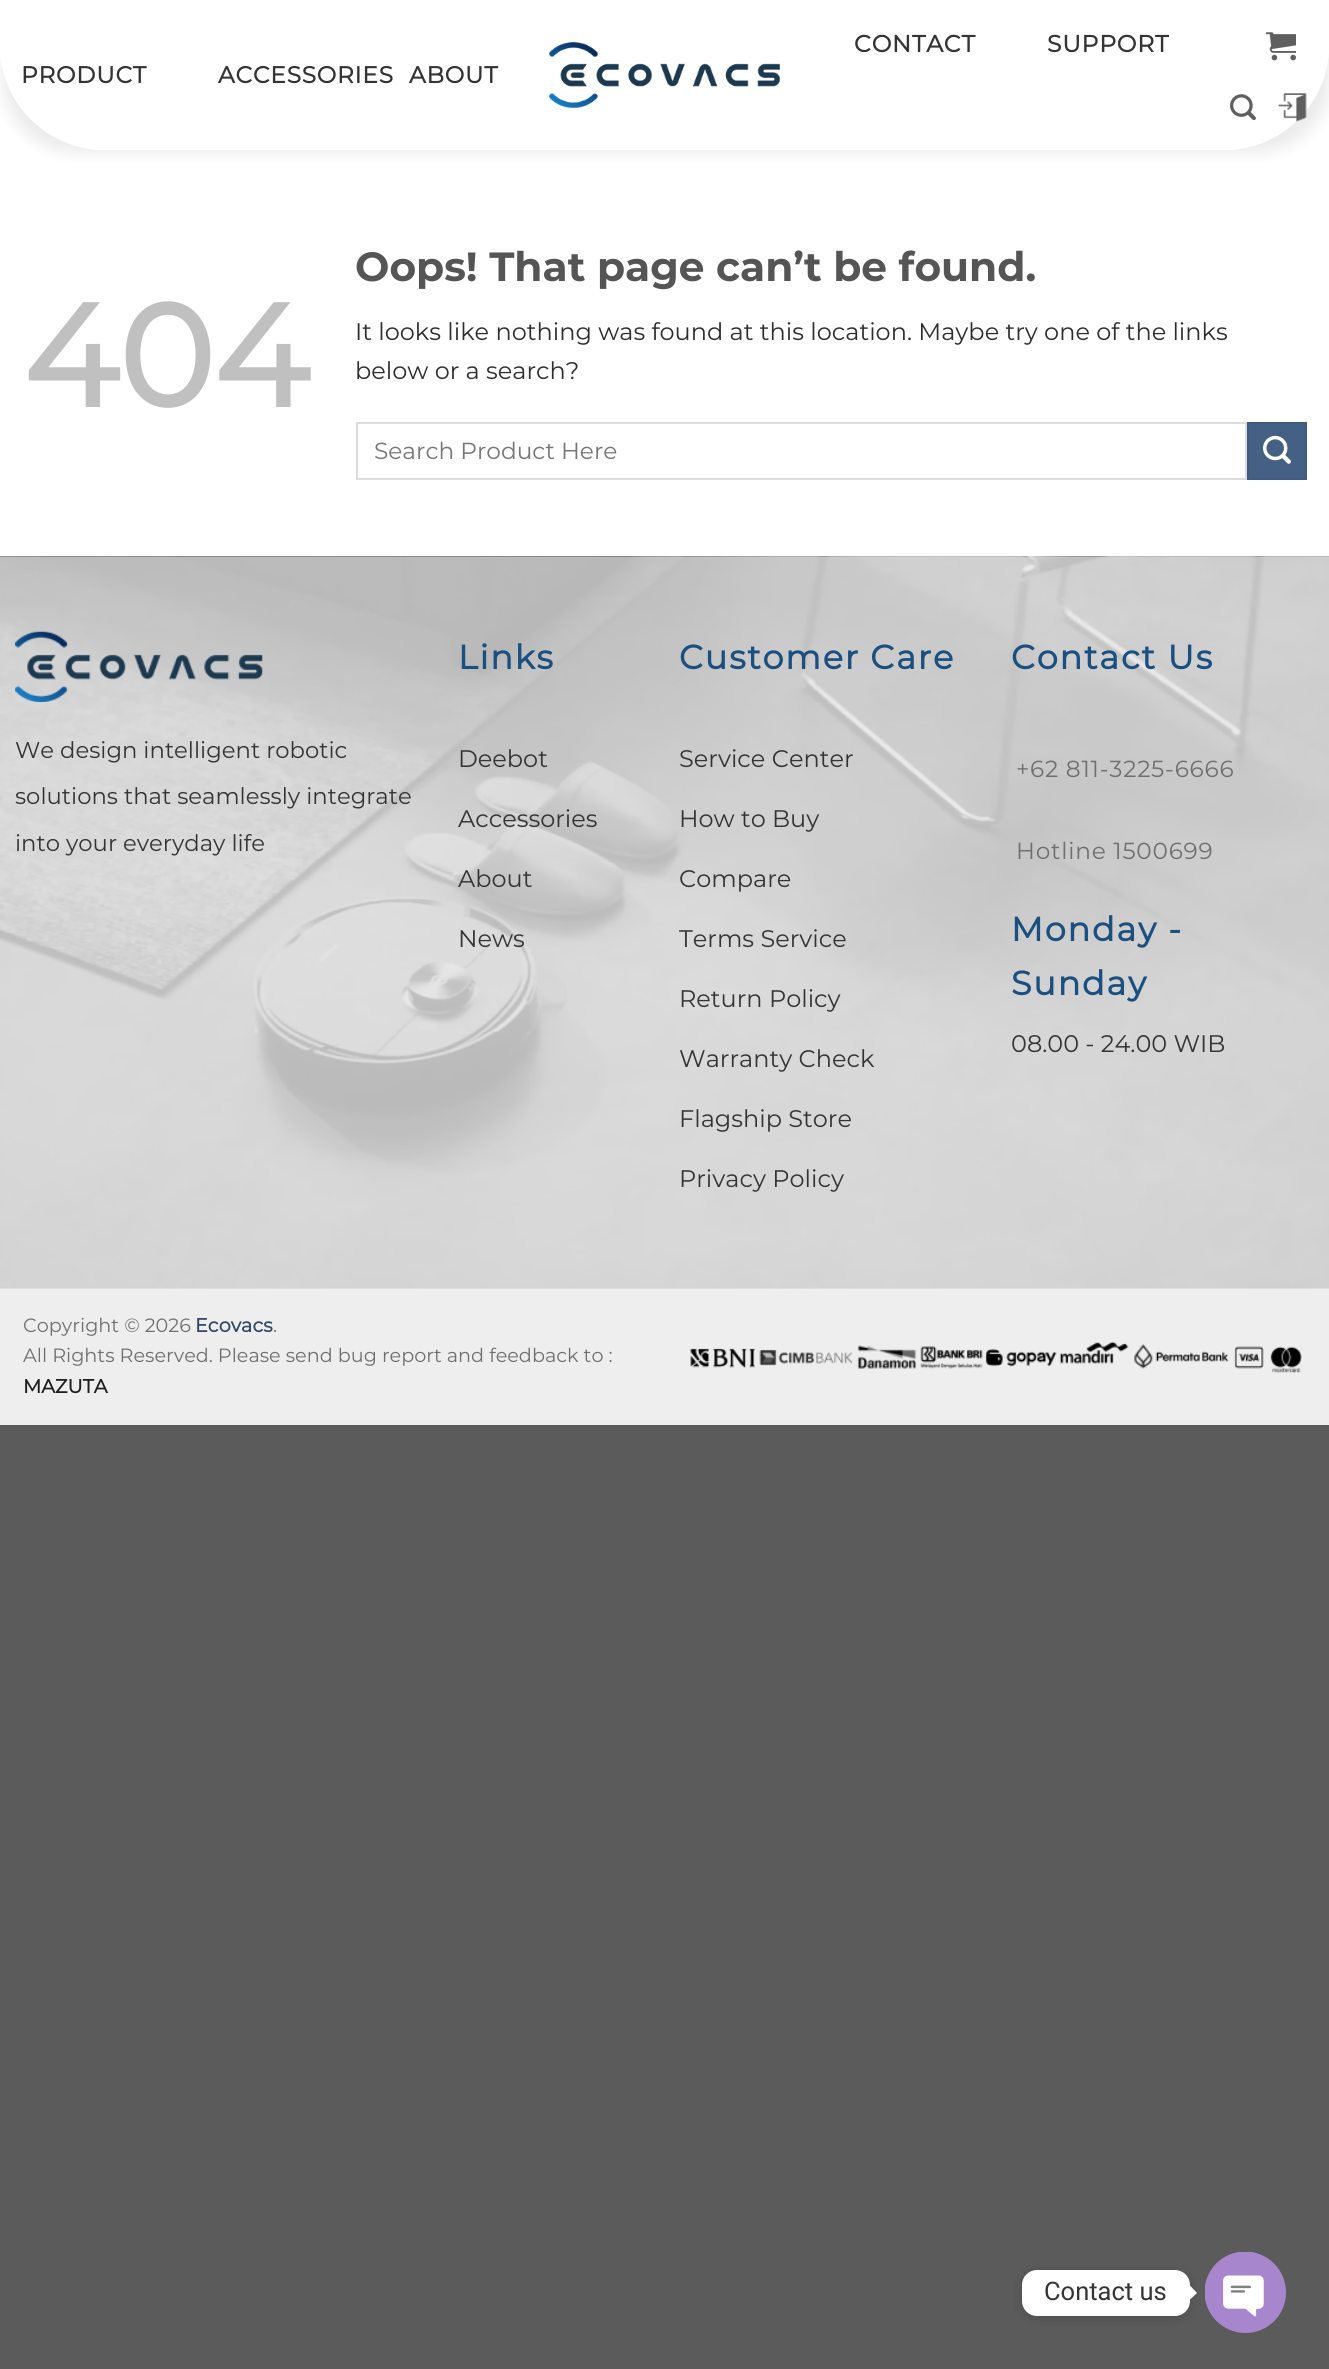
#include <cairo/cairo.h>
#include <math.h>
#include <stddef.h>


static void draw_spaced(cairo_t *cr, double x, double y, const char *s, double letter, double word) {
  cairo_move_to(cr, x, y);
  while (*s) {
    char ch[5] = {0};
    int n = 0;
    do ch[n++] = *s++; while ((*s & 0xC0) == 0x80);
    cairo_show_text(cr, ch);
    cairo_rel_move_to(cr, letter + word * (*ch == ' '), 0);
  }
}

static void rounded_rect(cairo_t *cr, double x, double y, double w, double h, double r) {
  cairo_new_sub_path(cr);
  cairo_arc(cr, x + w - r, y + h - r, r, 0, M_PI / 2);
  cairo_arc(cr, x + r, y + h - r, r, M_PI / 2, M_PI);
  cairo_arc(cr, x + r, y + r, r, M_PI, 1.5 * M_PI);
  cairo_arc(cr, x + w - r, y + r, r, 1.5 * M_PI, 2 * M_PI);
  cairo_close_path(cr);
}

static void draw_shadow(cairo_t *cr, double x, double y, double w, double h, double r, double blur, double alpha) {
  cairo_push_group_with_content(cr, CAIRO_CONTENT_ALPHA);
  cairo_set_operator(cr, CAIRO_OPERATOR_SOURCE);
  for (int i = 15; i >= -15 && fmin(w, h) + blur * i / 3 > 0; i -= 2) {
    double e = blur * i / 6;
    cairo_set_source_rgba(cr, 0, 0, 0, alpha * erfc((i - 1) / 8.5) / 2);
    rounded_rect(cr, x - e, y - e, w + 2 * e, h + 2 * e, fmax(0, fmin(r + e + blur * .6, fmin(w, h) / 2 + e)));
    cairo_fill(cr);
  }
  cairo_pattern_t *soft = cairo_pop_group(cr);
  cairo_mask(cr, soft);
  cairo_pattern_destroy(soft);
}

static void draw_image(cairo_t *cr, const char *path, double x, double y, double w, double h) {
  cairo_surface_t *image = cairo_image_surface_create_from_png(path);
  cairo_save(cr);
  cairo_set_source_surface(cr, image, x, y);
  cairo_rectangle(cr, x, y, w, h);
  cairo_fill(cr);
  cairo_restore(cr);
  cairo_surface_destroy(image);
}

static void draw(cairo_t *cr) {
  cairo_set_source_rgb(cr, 91 / 255.0, 91 / 255.0, 91 / 255.0);
  cairo_paint(cr);
  cairo_set_source_rgb(cr, 1, 1, 1);
  cairo_rectangle(cr, 0, 0, 1329, 557);
  cairo_fill(cr);
  cairo_set_source_rgb(cr, 233 / 255.0, 233 / 255.0, 233 / 255.0);
  cairo_rectangle(cr, 0, 1288, 1329, 1);
  cairo_fill(cr);
  cairo_save(cr);
  cairo_set_fill_rule(cr, CAIRO_FILL_RULE_EVEN_ODD);
  cairo_new_path(cr);
  cairo_move_to(cr, 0, 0);
  cairo_line_to(cr, 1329, 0);
  cairo_line_to(cr, 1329, 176);
  cairo_line_to(cr, 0, 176);
  cairo_close_path(cr);
  cairo_move_to(cr, 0, 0);
  cairo_line_to(cr, 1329, 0);
  cairo_line_to(cr, 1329, 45);
  cairo_curve_to(cr, 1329, 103, 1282, 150, 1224, 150);
  cairo_line_to(cr, 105, 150);
  cairo_curve_to(cr, 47, 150, 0, 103, 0, 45);
  cairo_close_path(cr);
  cairo_clip(cr);
  cairo_set_source_rgb(cr, 0, 0, 0);
  draw_shadow(cr, 2, 2, 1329, 150, 105, 7.5, 0.08);
  cairo_restore(cr);
  cairo_set_source_rgba(cr, 1, 1, 1, 0.88);
  cairo_new_path(cr);
  cairo_move_to(cr, 0, 0);
  cairo_line_to(cr, 1329, 0);
  cairo_line_to(cr, 1329, 45);
  cairo_curve_to(cr, 1329, 103, 1282, 150, 1224, 150);
  cairo_line_to(cr, 105, 150);
  cairo_curve_to(cr, 47, 150, 0, 103, 0, 45);
  cairo_close_path(cr);
  cairo_fill(cr);
  draw_image(cr, "images/1.png", 549, 42, 231, 66);
  draw_image(cr, "images/2.png", 1266, 32, 30, 29);
  draw_image(cr, "images/3.png", 1230, 94, 26, 27);
  draw_image(cr, "images/4.png", 1278, 93, 29, 29);
  cairo_rectangle(cr, 357, 423, 889, 56);
  cairo_set_source_rgb(cr, 221 / 255.0, 221 / 255.0, 221 / 255.0);
  cairo_stroke(cr);
  cairo_set_source_rgb(cr, 68 / 255.0, 96 / 255.0, 132 / 255.0);
  cairo_rectangle(cr, 1248, 423, 58, 56);
  cairo_fill_preserve(cr);
  cairo_set_source_rgb(cr, 65 / 255.0, 91 / 255.0, 125 / 255.0);
  cairo_stroke(cr);
  draw_image(cr, "images/5.png", 1263, 435, 28, 29);
  draw_image(cr, "images/6.png", 0, 556, 1329, 733);
  draw_image(cr, "images/7.png", 15, 631, 248, 71);
  cairo_set_source_rgb(cr, 238 / 255.0, 238 / 255.0, 238 / 255.0);
  cairo_rectangle(cr, 0, 1289, 1329, 136);
  cairo_fill(cr);
  draw_image(cr, "images/8.png", 690, 1341, 612, 32);
  cairo_set_source_rgb(cr, 0, 0, 0);
  draw_shadow(cr, 1022, 2271, 168, 47, 15, 6, 0.15);
  cairo_set_source_rgb(cr, 1, 1, 1);
  rounded_rect(cr, 1022, 2270, 168, 46, 15);
  cairo_fill(cr);
  cairo_new_path(cr);
  cairo_move_to(cr, 1189.5, 2300);
  cairo_line_to(cr, 1189.5, 2285);
  cairo_line_to(cr, 1197, 2293);
  cairo_close_path(cr);
  cairo_fill(cr);
  cairo_set_source_rgb(cr, 168 / 255.0, 134 / 255.0, 205 / 255.0);
  cairo_arc(cr, 1245.5, 2292.5, 40.5, 0, 2 * M_PI);
  cairo_fill(cr);
  draw_image(cr, "images/9.png", 1205, 2252, 79, 79);
  cairo_select_font_face(cr, "Montserrat", CAIRO_FONT_SLANT_NORMAL, CAIRO_FONT_WEIGHT_BOLD);
  cairo_set_font_size(cr, 23.25);
  cairo_set_source_rgb(cr, 52 / 255.0, 52 / 255.0, 52 / 255.0);
  draw_spaced(cr, 21, 83, "PRODUCT", 0.75, 0);
  draw_spaced(cr, 218, 83, "ACCESSORIES", 0.75, 0);
  draw_spaced(cr, 409, 83, "ABOUT", 0.75, 0);
  cairo_set_font_size(cr, 23.5);
  draw_spaced(cr, 854, 52, "CONTACT", 0.75, 0);
  draw_spaced(cr, 1047, 52, "SUPPORT", 0.75, 0);
  cairo_set_font_size(cr, 144);
  cairo_set_source_rgb(cr, 192 / 255.0, 192 / 255.0, 192 / 255.0);
  cairo_move_to(cr, 23, 407);
  cairo_show_text(cr, "404");
  cairo_select_font_face(cr, "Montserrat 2", CAIRO_FONT_SLANT_NORMAL, CAIRO_FONT_WEIGHT_BOLD);
  cairo_set_font_size(cr, 40.75);
  cairo_set_source_rgb(cr, 85 / 255.0, 85 / 255.0, 85 / 255.0);
  cairo_move_to(cr, 355, 281);
  cairo_show_text(cr, "Oops! That page can’t be found.");
  cairo_select_font_face(cr, "Montserrat", CAIRO_FONT_SLANT_NORMAL, CAIRO_FONT_WEIGHT_NORMAL);
  cairo_set_font_size(cr, 24);
  cairo_set_source_rgb(cr, 45 / 255.0, 45 / 255.0, 45 / 255.0);
  cairo_move_to(cr, 355, 340);
  cairo_show_text(cr, "It looks like nothing was found at this location. Maybe try one of the links");
  cairo_move_to(cr, 355, 379);
  cairo_show_text(cr, "below or a search?");
  cairo_set_font_size(cr, 23.25);
  cairo_set_source_rgb(cr, 117 / 255.0, 117 / 255.0, 117 / 255.0);
  cairo_move_to(cr, 374, 459);
  cairo_show_text(cr, "Search Product Here");
  cairo_set_font_size(cr, 22.75);
  cairo_set_source_rgb(cr, 52 / 255.0, 52 / 255.0, 52 / 255.0);
  cairo_move_to(cr, 15, 758);
  cairo_show_text(cr, "We design intelligent robotic");
  cairo_move_to(cr, 15, 804);
  cairo_show_text(cr, "solutions that seamlessly integrate");
  cairo_move_to(cr, 15, 851);
  cairo_show_text(cr, "into your everyday life");
  cairo_select_font_face(cr, "Montserrat", CAIRO_FONT_SLANT_NORMAL, CAIRO_FONT_WEIGHT_BOLD);
  cairo_set_font_size(cr, 33.5);
  cairo_set_source_rgb(cr, 27 / 255.0, 79 / 255.0, 128 / 255.0);
  draw_spaced(cr, 458, 669, "Links", 1.75, 0);
  cairo_select_font_face(cr, "Montserrat", CAIRO_FONT_SLANT_NORMAL, CAIRO_FONT_WEIGHT_NORMAL);
  cairo_set_font_size(cr, 24);
  cairo_set_source_rgb(cr, 52 / 255.0, 52 / 255.0, 52 / 255.0);
  cairo_move_to(cr, 458, 767);
  cairo_show_text(cr, "Deebot");
  cairo_move_to(cr, 458, 827);
  cairo_show_text(cr, "Accessories");
  cairo_move_to(cr, 458, 887);
  cairo_show_text(cr, "About");
  cairo_move_to(cr, 458, 947);
  cairo_show_text(cr, "News");
  cairo_select_font_face(cr, "Montserrat", CAIRO_FONT_SLANT_NORMAL, CAIRO_FONT_WEIGHT_BOLD);
  cairo_set_font_size(cr, 33.5);
  cairo_set_source_rgb(cr, 27 / 255.0, 79 / 255.0, 128 / 255.0);
  draw_spaced(cr, 679, 669, "Customer Care", 1.75, 0);
  cairo_select_font_face(cr, "Montserrat", CAIRO_FONT_SLANT_NORMAL, CAIRO_FONT_WEIGHT_NORMAL);
  cairo_set_font_size(cr, 24);
  cairo_set_source_rgb(cr, 52 / 255.0, 52 / 255.0, 52 / 255.0);
  cairo_move_to(cr, 679, 767);
  cairo_show_text(cr, "Service Center");
  cairo_move_to(cr, 679, 827);
  cairo_show_text(cr, "How to Buy");
  cairo_move_to(cr, 679, 887);
  cairo_show_text(cr, "Compare");
  cairo_move_to(cr, 679, 947);
  cairo_show_text(cr, "Terms Service");
  cairo_move_to(cr, 679, 1007);
  cairo_show_text(cr, "Return Policy");
  cairo_move_to(cr, 679, 1067);
  cairo_show_text(cr, "Warranty Check");
  cairo_move_to(cr, 679, 1127);
  cairo_show_text(cr, "Flagship Store");
  cairo_move_to(cr, 679, 1187);
  cairo_show_text(cr, "Privacy Policy");
  cairo_select_font_face(cr, "Montserrat", CAIRO_FONT_SLANT_NORMAL, CAIRO_FONT_WEIGHT_BOLD);
  cairo_set_font_size(cr, 33.5);
  cairo_set_source_rgb(cr, 27 / 255.0, 79 / 255.0, 128 / 255.0);
  draw_spaced(cr, 1011, 669, "Contact Us", 1.75, 0);
  cairo_select_font_face(cr, "Montserrat", CAIRO_FONT_SLANT_NORMAL, CAIRO_FONT_WEIGHT_NORMAL);
  cairo_set_font_size(cr, 23.25);
  cairo_set_source_rgb(cr, 111 / 255.0, 111 / 255.0, 111 / 255.0);
  draw_spaced(cr, 1016, 777, "+62 811-3225-6666", 0.75, 0);
  draw_spaced(cr, 1016, 859, "Hotline 1500699", 0.75, 0);
  cairo_select_font_face(cr, "Montserrat", CAIRO_FONT_SLANT_NORMAL, CAIRO_FONT_WEIGHT_BOLD);
  cairo_set_font_size(cr, 33.5);
  cairo_set_source_rgb(cr, 27 / 255.0, 79 / 255.0, 128 / 255.0);
  draw_spaced(cr, 1011, 941, "Monday -", 1.75, 0);
  draw_spaced(cr, 1011, 995, "Sunday", 1.75, 0);
  cairo_select_font_face(cr, "Montserrat", CAIRO_FONT_SLANT_NORMAL, CAIRO_FONT_WEIGHT_NORMAL);
  cairo_set_font_size(cr, 24);
  cairo_set_source_rgb(cr, 52 / 255.0, 52 / 255.0, 52 / 255.0);
  cairo_move_to(cr, 1011, 1052);
  cairo_show_text(cr, "08.00 - 24.00 WIB");
  cairo_set_font_size(cr, 19.2);
  cairo_set_source_rgb(cr, 111 / 255.0, 111 / 255.0, 111 / 255.0);
  cairo_move_to(cr, 23, 1332);
  cairo_show_text(cr, "Copyright © 2026");
  cairo_select_font_face(cr, "Montserrat", CAIRO_FONT_SLANT_NORMAL, CAIRO_FONT_WEIGHT_BOLD);
  cairo_set_source_rgb(cr, 51 / 255.0, 72 / 255.0, 98 / 255.0);
  cairo_move_to(cr, 195, 1332);
  cairo_show_text(cr, "Ecovacs");
  cairo_select_font_face(cr, "Montserrat", CAIRO_FONT_SLANT_NORMAL, CAIRO_FONT_WEIGHT_NORMAL);
  cairo_set_source_rgb(cr, 111 / 255.0, 111 / 255.0, 111 / 255.0);
  cairo_move_to(cr, 273, 1332);
  cairo_show_text(cr, ".");
  cairo_move_to(cr, 23, 1362);
  cairo_show_text(cr, "All Rights Reserved. Please send bug report and feedback to :");
  cairo_select_font_face(cr, "Montserrat", CAIRO_FONT_SLANT_NORMAL, CAIRO_FONT_WEIGHT_BOLD);
  cairo_set_source_rgb(cr, 30 / 255.0, 30 / 255.0, 30 / 255.0);
  cairo_move_to(cr, 23, 1393);
  cairo_show_text(cr, "MAZUTA");
  cairo_select_font_face(cr, "Roboto", CAIRO_FONT_SLANT_NORMAL, CAIRO_FONT_WEIGHT_NORMAL);
  cairo_set_font_size(cr, 25.5);
  cairo_set_source_rgb(cr, 52 / 255.0, 52 / 255.0, 52 / 255.0);
  cairo_move_to(cr, 1044, 2300);
  cairo_show_text(cr, "Contact us");
}

int main(void) {
  cairo_surface_t *surface = cairo_image_surface_create(CAIRO_FORMAT_RGB24, 1329, 2369);
  cairo_t *cr = cairo_create(surface);
  cairo_font_options_t *options = cairo_font_options_create();
  cairo_font_options_set_hint_metrics(options, CAIRO_HINT_METRICS_OFF);
  cairo_font_options_set_hint_style(options, CAIRO_HINT_STYLE_NONE);
  cairo_set_font_options(cr, options);
  cairo_set_miter_limit(cr, 4);
  draw(cr);
  cairo_surface_write_to_png(surface, "out.png");
  cairo_font_options_destroy(options);
  cairo_destroy(cr);
  cairo_surface_destroy(surface);
  return 0;
}
